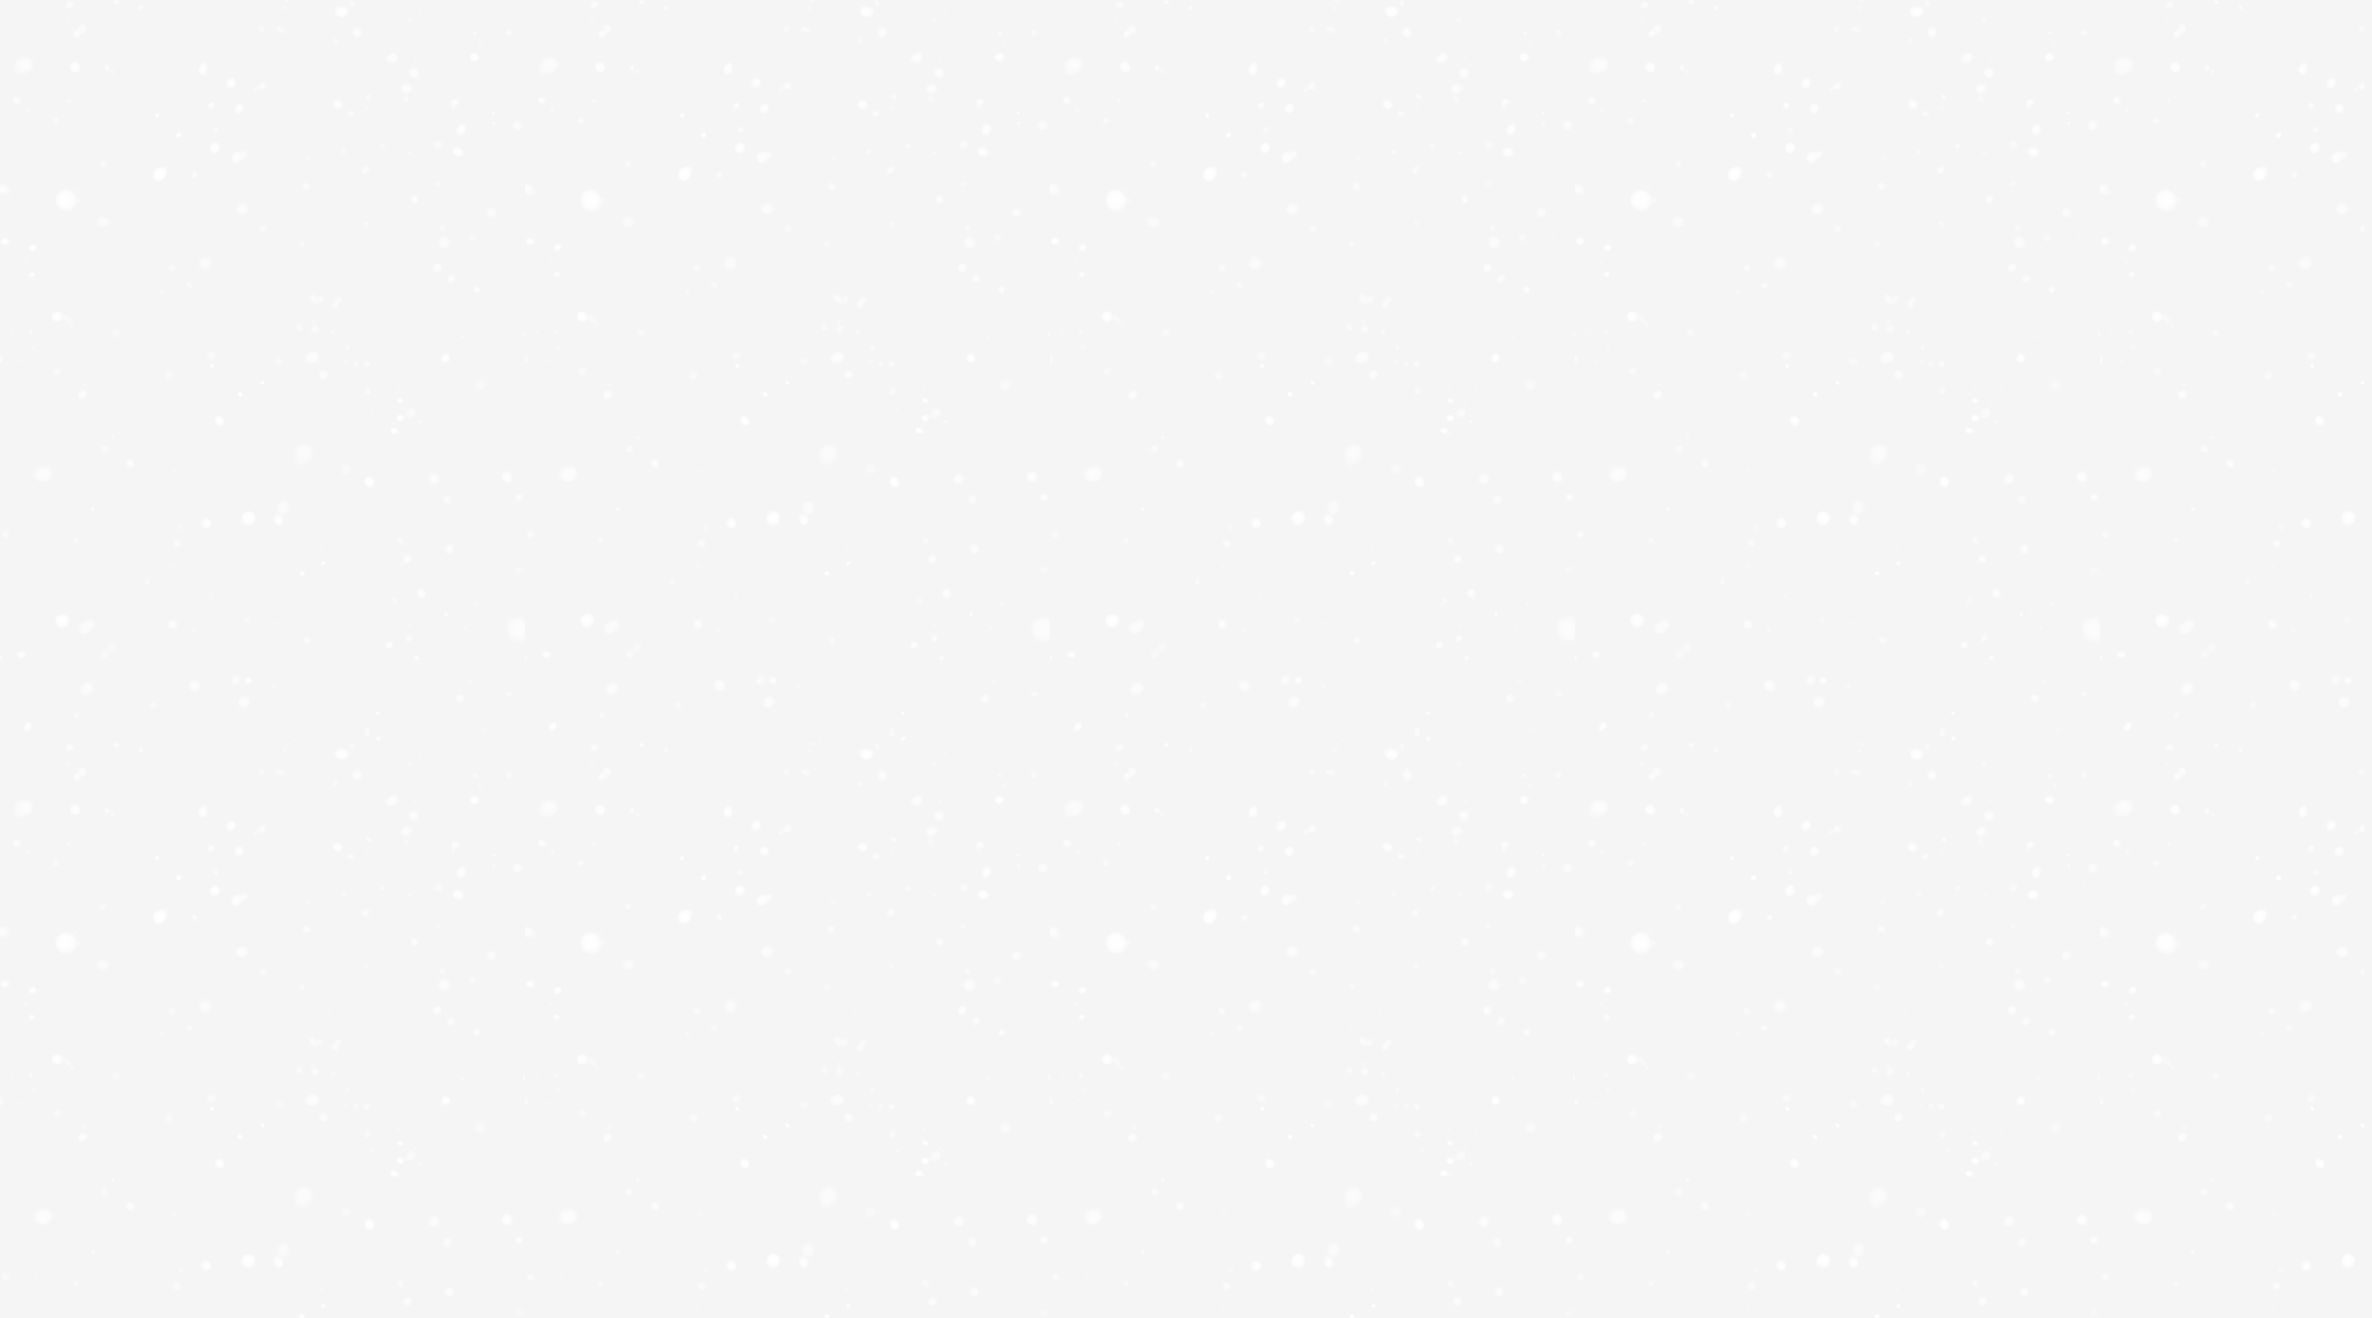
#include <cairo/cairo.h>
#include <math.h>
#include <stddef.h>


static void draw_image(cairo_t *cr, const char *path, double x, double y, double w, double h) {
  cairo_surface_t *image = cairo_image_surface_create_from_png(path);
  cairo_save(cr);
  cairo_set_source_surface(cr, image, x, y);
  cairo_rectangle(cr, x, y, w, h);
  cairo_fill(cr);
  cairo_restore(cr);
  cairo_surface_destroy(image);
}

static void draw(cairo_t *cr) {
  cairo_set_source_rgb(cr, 245 / 255.0, 245 / 255.0, 245 / 255.0);
  cairo_paint(cr);
  draw_image(cr, "images/1.png", 0, 0, 2365, 1318);
}

int main(void) {
  cairo_surface_t *surface = cairo_image_surface_create(CAIRO_FORMAT_RGB24, 2372, 1318);
  cairo_t *cr = cairo_create(surface);
  cairo_font_options_t *options = cairo_font_options_create();
  cairo_font_options_set_hint_metrics(options, CAIRO_HINT_METRICS_OFF);
  cairo_font_options_set_hint_style(options, CAIRO_HINT_STYLE_NONE);
  cairo_set_font_options(cr, options);
  cairo_set_miter_limit(cr, 4);
  draw(cr);
  cairo_surface_write_to_png(surface, "out.png");
  cairo_font_options_destroy(options);
  cairo_destroy(cr);
  cairo_surface_destroy(surface);
  return 0;
}
